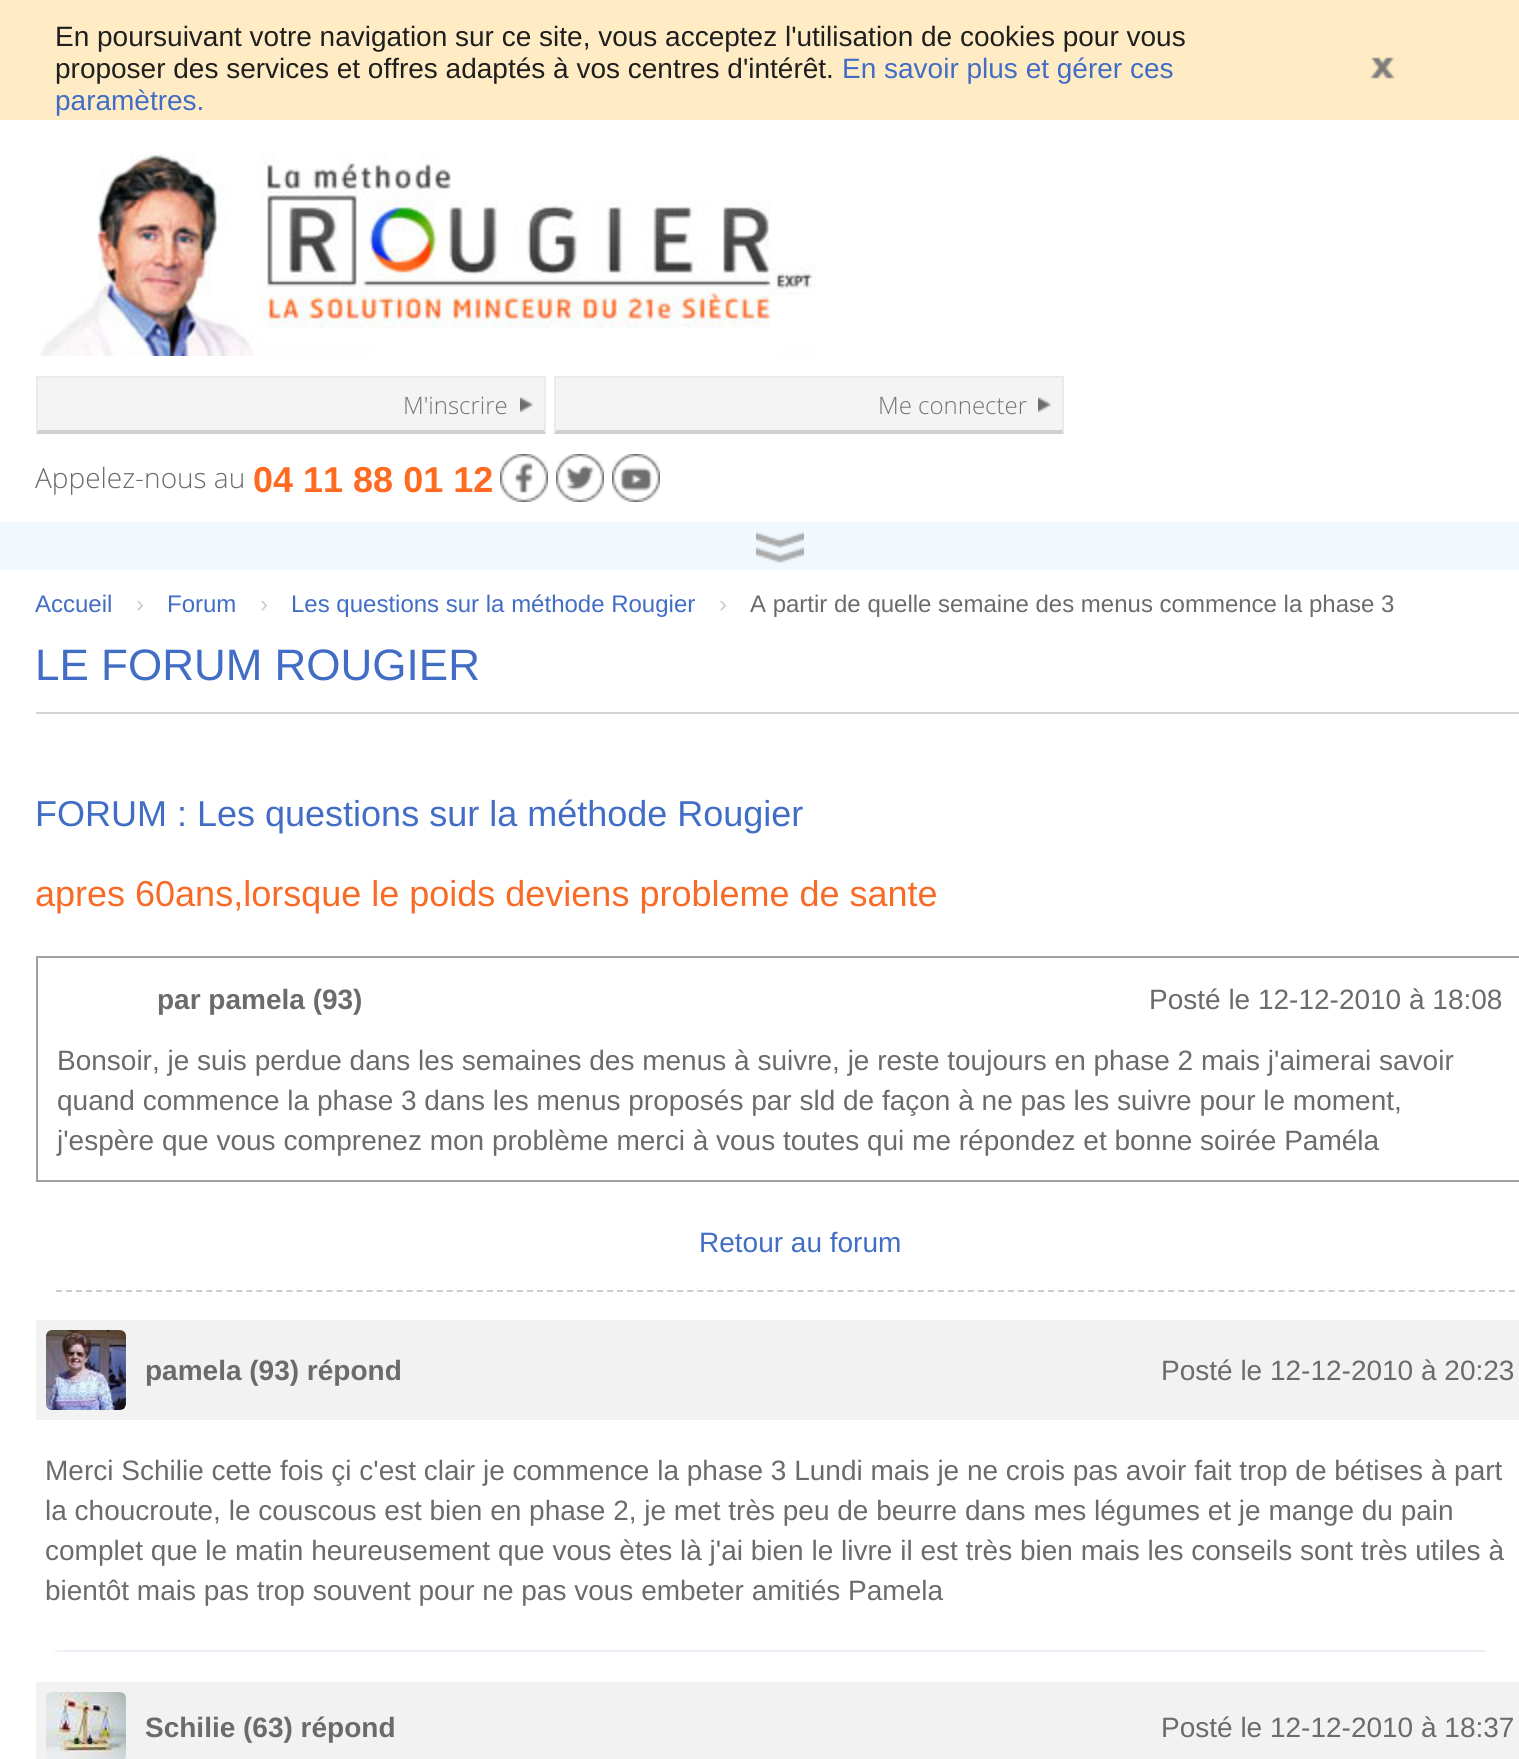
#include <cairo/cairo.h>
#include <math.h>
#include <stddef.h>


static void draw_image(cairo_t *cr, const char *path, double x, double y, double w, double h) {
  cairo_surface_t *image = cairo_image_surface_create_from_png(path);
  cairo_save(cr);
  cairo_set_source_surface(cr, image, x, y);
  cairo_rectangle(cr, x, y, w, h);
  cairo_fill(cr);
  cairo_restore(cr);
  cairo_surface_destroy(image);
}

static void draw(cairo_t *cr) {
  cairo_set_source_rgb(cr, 1, 1, 1);
  cairo_paint(cr);
  cairo_set_source_rgb(cr, 1, 236 / 255.0, 196 / 255.0);
  cairo_rectangle(cr, 0, 0, 1519, 120);
  cairo_fill(cr);
  draw_image(cr, "images/1.png", 1369, 57, 26, 22);
  draw_image(cr, "images/2.png", 39, 152, 777, 204);
  cairo_set_source_rgb(cr, 244 / 255.0, 244 / 255.0, 244 / 255.0);
  cairo_rectangle(cr, 38, 378, 506, 52);
  cairo_fill(cr);
  draw_image(cr, "images/3.png", 520, 397, 14, 15);
  cairo_set_source_rgb(cr, 234 / 255.0, 234 / 255.0, 234 / 255.0);
  cairo_rectangle(cr, 36, 376, 510, 2);
  cairo_fill(cr);
  cairo_new_path(cr);
  cairo_move_to(cr, 546, 376);
  cairo_line_to(cr, 546, 434);
  cairo_line_to(cr, 544, 430);
  cairo_line_to(cr, 544, 378);
  cairo_close_path(cr);
  cairo_fill(cr);
  cairo_set_source_rgb(cr, 208 / 255.0, 208 / 255.0, 208 / 255.0);
  cairo_new_path(cr);
  cairo_move_to(cr, 546, 434);
  cairo_line_to(cr, 36, 434);
  cairo_line_to(cr, 38, 430);
  cairo_line_to(cr, 544, 430);
  cairo_close_path(cr);
  cairo_fill(cr);
  cairo_set_source_rgb(cr, 234 / 255.0, 234 / 255.0, 234 / 255.0);
  cairo_new_path(cr);
  cairo_move_to(cr, 36, 434);
  cairo_line_to(cr, 36, 376);
  cairo_line_to(cr, 38, 378);
  cairo_line_to(cr, 38, 430);
  cairo_close_path(cr);
  cairo_fill(cr);
  cairo_set_source_rgb(cr, 244 / 255.0, 244 / 255.0, 244 / 255.0);
  cairo_rectangle(cr, 556, 378, 506, 52);
  cairo_fill(cr);
  draw_image(cr, "images/3.png", 1038, 397, 14, 15);
  cairo_set_source_rgb(cr, 234 / 255.0, 234 / 255.0, 234 / 255.0);
  cairo_rectangle(cr, 554, 376, 510, 2);
  cairo_fill(cr);
  cairo_new_path(cr);
  cairo_move_to(cr, 1064, 376);
  cairo_line_to(cr, 1064, 434);
  cairo_line_to(cr, 1062, 430);
  cairo_line_to(cr, 1062, 378);
  cairo_close_path(cr);
  cairo_fill(cr);
  cairo_set_source_rgb(cr, 208 / 255.0, 208 / 255.0, 208 / 255.0);
  cairo_new_path(cr);
  cairo_move_to(cr, 1064, 434);
  cairo_line_to(cr, 554, 434);
  cairo_line_to(cr, 556, 430);
  cairo_line_to(cr, 1062, 430);
  cairo_close_path(cr);
  cairo_fill(cr);
  cairo_set_source_rgb(cr, 234 / 255.0, 234 / 255.0, 234 / 255.0);
  cairo_new_path(cr);
  cairo_move_to(cr, 554, 434);
  cairo_line_to(cr, 554, 376);
  cairo_line_to(cr, 556, 378);
  cairo_line_to(cr, 556, 430);
  cairo_close_path(cr);
  cairo_fill(cr);
  draw_image(cr, "images/4.png", 500, 454, 48, 48);
  draw_image(cr, "images/5.png", 556, 454, 48, 48);
  draw_image(cr, "images/6.png", 612, 454, 48, 48);
  cairo_set_source_rgb(cr, 241 / 255.0, 248 / 255.0, 254 / 255.0);
  cairo_rectangle(cr, 0, 522, 1519, 48);
  cairo_fill(cr);
  draw_image(cr, "images/7.png", 756, 531, 48, 32);
  cairo_set_source_rgb(cr, 211 / 255.0, 211 / 255.0, 211 / 255.0);
  cairo_rectangle(cr, 36, 712, 1483, 2);
  cairo_fill(cr);
  cairo_rectangle(cr, 37, 957, 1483, 224);
  cairo_set_source_rgb(cr, 161 / 255.0, 161 / 255.0, 161 / 255.0);
  cairo_stroke(cr);
  cairo_new_path(cr);
  cairo_move_to(cr, 56, 1291);
  cairo_line_to(cr, 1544, 1291);
  cairo_set_source_rgb(cr, 204 / 255.0, 204 / 255.0, 204 / 255.0);
  cairo_set_dash(cr, (double[]){6, 4.02}, 2, 0);
  cairo_stroke(cr);
  cairo_set_source_rgb(cr, 242 / 255.0, 242 / 255.0, 243 / 255.0);
  cairo_rectangle(cr, 36, 1320, 1483, 100);
  cairo_fill(cr);
  draw_image(cr, "images/8.png", 46, 1330, 80, 80);
  draw_image(cr, "images/9.png", 53, 1650, 1433, 2);
  cairo_rectangle(cr, 36, 1682, 1483, 77);
  cairo_fill(cr);
  draw_image(cr, "images/10.png", 46, 1692, 80, 67);
  cairo_select_font_face(cr, "Liberation Sans", CAIRO_FONT_SLANT_NORMAL, CAIRO_FONT_WEIGHT_NORMAL);
  cairo_set_font_size(cr, 28);
  cairo_set_source_rgb(cr, 31 / 255.0, 31 / 255.0, 31 / 255.0);
  cairo_move_to(cr, 55, 46);
  cairo_show_text(cr, "En poursuivant votre navigation sur ce site, vous acceptez l'utilisation de cookies pour vous");
  cairo_move_to(cr, 55, 78);
  cairo_show_text(cr, "proposer des services et offres adaptés à vos centres d'intérêt.");
  cairo_set_source_rgb(cr, 66 / 255.0, 109 / 255.0, 197 / 255.0);
  cairo_move_to(cr, 842, 78);
  cairo_show_text(cr, "En savoir plus et gérer ces");
  cairo_move_to(cr, 55, 110);
  cairo_show_text(cr, "paramètres.");
  cairo_select_font_face(cr, "Open Sans Light", CAIRO_FONT_SLANT_NORMAL, CAIRO_FONT_WEIGHT_NORMAL);
  cairo_set_font_size(cr, 24);
  cairo_set_source_rgb(cr, 115 / 255.0, 116 / 255.0, 116 / 255.0);
  cairo_move_to(cr, 403, 414);
  cairo_show_text(cr, "M'inscrire");
  cairo_move_to(cr, 878, 414);
  cairo_show_text(cr, "Me connecter");
  cairo_set_font_size(cr, 28);
  cairo_set_source_rgb(cr, 107 / 255.0, 107 / 255.0, 107 / 255.0);
  cairo_move_to(cr, 35, 488);
  cairo_show_text(cr, "Appelez-nous au");
  cairo_select_font_face(cr, "Liberation Sans", CAIRO_FONT_SLANT_NORMAL, CAIRO_FONT_WEIGHT_BOLD);
  cairo_set_font_size(cr, 36);
  cairo_set_source_rgb(cr, 1, 106 / 255.0, 32 / 255.0);
  cairo_move_to(cr, 253, 492);
  cairo_show_text(cr, "04 11 88 01 12");
  cairo_select_font_face(cr, "Liberation Sans", CAIRO_FONT_SLANT_NORMAL, CAIRO_FONT_WEIGHT_NORMAL);
  cairo_set_font_size(cr, 24);
  cairo_set_source_rgb(cr, 66 / 255.0, 109 / 255.0, 197 / 255.0);
  cairo_move_to(cr, 35, 612);
  cairo_show_text(cr, "Accueil");
  cairo_set_source_rgb(cr, 204 / 255.0, 204 / 255.0, 204 / 255.0);
  cairo_move_to(cr, 136, 612);
  cairo_show_text(cr, "›");
  cairo_set_source_rgb(cr, 66 / 255.0, 109 / 255.0, 197 / 255.0);
  cairo_move_to(cr, 167, 612);
  cairo_show_text(cr, "Forum");
  cairo_set_source_rgb(cr, 204 / 255.0, 204 / 255.0, 204 / 255.0);
  cairo_move_to(cr, 260, 612);
  cairo_show_text(cr, "›");
  cairo_set_source_rgb(cr, 66 / 255.0, 109 / 255.0, 197 / 255.0);
  cairo_move_to(cr, 291, 612);
  cairo_show_text(cr, "Les questions sur la méthode Rougier");
  cairo_set_source_rgb(cr, 204 / 255.0, 204 / 255.0, 204 / 255.0);
  cairo_move_to(cr, 719, 612);
  cairo_show_text(cr, "›");
  cairo_set_source_rgb(cr, 107 / 255.0, 107 / 255.0, 107 / 255.0);
  cairo_move_to(cr, 750, 612);
  cairo_show_text(cr, "A partir de quelle semaine des menus commence la phase 3");
  cairo_set_font_size(cr, 44);
  cairo_set_source_rgb(cr, 66 / 255.0, 109 / 255.0, 197 / 255.0);
  cairo_move_to(cr, 35, 680);
  cairo_show_text(cr, "LE FORUM ROUGIER");
  cairo_set_font_size(cr, 36);
  cairo_move_to(cr, 35, 826);
  cairo_show_text(cr, "FORUM : Les questions sur la méthode Rougier");
  cairo_set_source_rgb(cr, 247 / 255.0, 107 / 255.0, 39 / 255.0);
  cairo_move_to(cr, 35, 906);
  cairo_show_text(cr, "apres 60ans,lorsque le poids deviens probleme de sante");
  cairo_select_font_face(cr, "Liberation Sans", CAIRO_FONT_SLANT_NORMAL, CAIRO_FONT_WEIGHT_BOLD);
  cairo_set_font_size(cr, 28);
  cairo_set_source_rgb(cr, 107 / 255.0, 107 / 255.0, 107 / 255.0);
  cairo_move_to(cr, 157, 1009);
  cairo_show_text(cr, "par pamela (93)");
  cairo_select_font_face(cr, "Liberation Sans", CAIRO_FONT_SLANT_NORMAL, CAIRO_FONT_WEIGHT_NORMAL);
  cairo_move_to(cr, 1149, 1009);
  cairo_show_text(cr, "Posté le 12-12-2010 à 18:08");
  cairo_move_to(cr, 57, 1070);
  cairo_show_text(cr, "Bonsoir, je suis perdue dans les semaines des menus à suivre, je reste toujours en phase 2 mais j'aimerai savoir");
  cairo_move_to(cr, 57, 1110);
  cairo_show_text(cr, "quand commence la phase 3 dans les menus proposés par sld de façon à ne pas les suivre pour le moment,");
  cairo_move_to(cr, 57, 1150);
  cairo_show_text(cr, "j'espère que vous comprenez mon problème merci à vous toutes qui me répondez et bonne soirée Paméla");
  cairo_set_source_rgb(cr, 66 / 255.0, 109 / 255.0, 197 / 255.0);
  cairo_move_to(cr, 699, 1252);
  cairo_show_text(cr, "Retour au forum");
  cairo_select_font_face(cr, "Liberation Sans", CAIRO_FONT_SLANT_NORMAL, CAIRO_FONT_WEIGHT_BOLD);
  cairo_set_source_rgb(cr, 107 / 255.0, 107 / 255.0, 107 / 255.0);
  cairo_move_to(cr, 145, 1380);
  cairo_show_text(cr, "pamela (93) répond");
  cairo_select_font_face(cr, "Liberation Sans", CAIRO_FONT_SLANT_NORMAL, CAIRO_FONT_WEIGHT_NORMAL);
  cairo_move_to(cr, 1161, 1380);
  cairo_show_text(cr, "Posté le 12-12-2010 à 20:23");
  cairo_move_to(cr, 45, 1480);
  cairo_show_text(cr, "Merci Schilie cette fois çi c'est clair je commence la phase 3 Lundi mais je ne crois pas avoir fait trop de bétises à part");
  cairo_move_to(cr, 45, 1520);
  cairo_show_text(cr, "la choucroute, le couscous est bien en phase 2, je met très peu de beurre dans mes légumes et je mange du pain");
  cairo_move_to(cr, 45, 1560);
  cairo_show_text(cr, "complet que le matin heureusement que vous ètes là j'ai bien le livre il est très bien mais les conseils sont très utiles à");
  cairo_move_to(cr, 45, 1600);
  cairo_show_text(cr, "bientôt mais pas trop souvent pour ne pas vous embeter amitiés Pamela");
  cairo_select_font_face(cr, "Liberation Sans", CAIRO_FONT_SLANT_NORMAL, CAIRO_FONT_WEIGHT_BOLD);
  cairo_move_to(cr, 145, 1737);
  cairo_show_text(cr, "Schilie (63) répond");
  cairo_select_font_face(cr, "Liberation Sans", CAIRO_FONT_SLANT_NORMAL, CAIRO_FONT_WEIGHT_NORMAL);
  cairo_move_to(cr, 1161, 1737);
  cairo_show_text(cr, "Posté le 12-12-2010 à 18:37");
}

int main(void) {
  cairo_surface_t *surface = cairo_image_surface_create(CAIRO_FORMAT_RGB24, 1519, 1759);
  cairo_t *cr = cairo_create(surface);
  cairo_font_options_t *options = cairo_font_options_create();
  cairo_font_options_set_hint_metrics(options, CAIRO_HINT_METRICS_OFF);
  cairo_font_options_set_hint_style(options, CAIRO_HINT_STYLE_NONE);
  cairo_set_font_options(cr, options);
  cairo_set_miter_limit(cr, 4);
  draw(cr);
  cairo_surface_write_to_png(surface, "out.png");
  cairo_font_options_destroy(options);
  cairo_destroy(cr);
  cairo_surface_destroy(surface);
  return 0;
}
